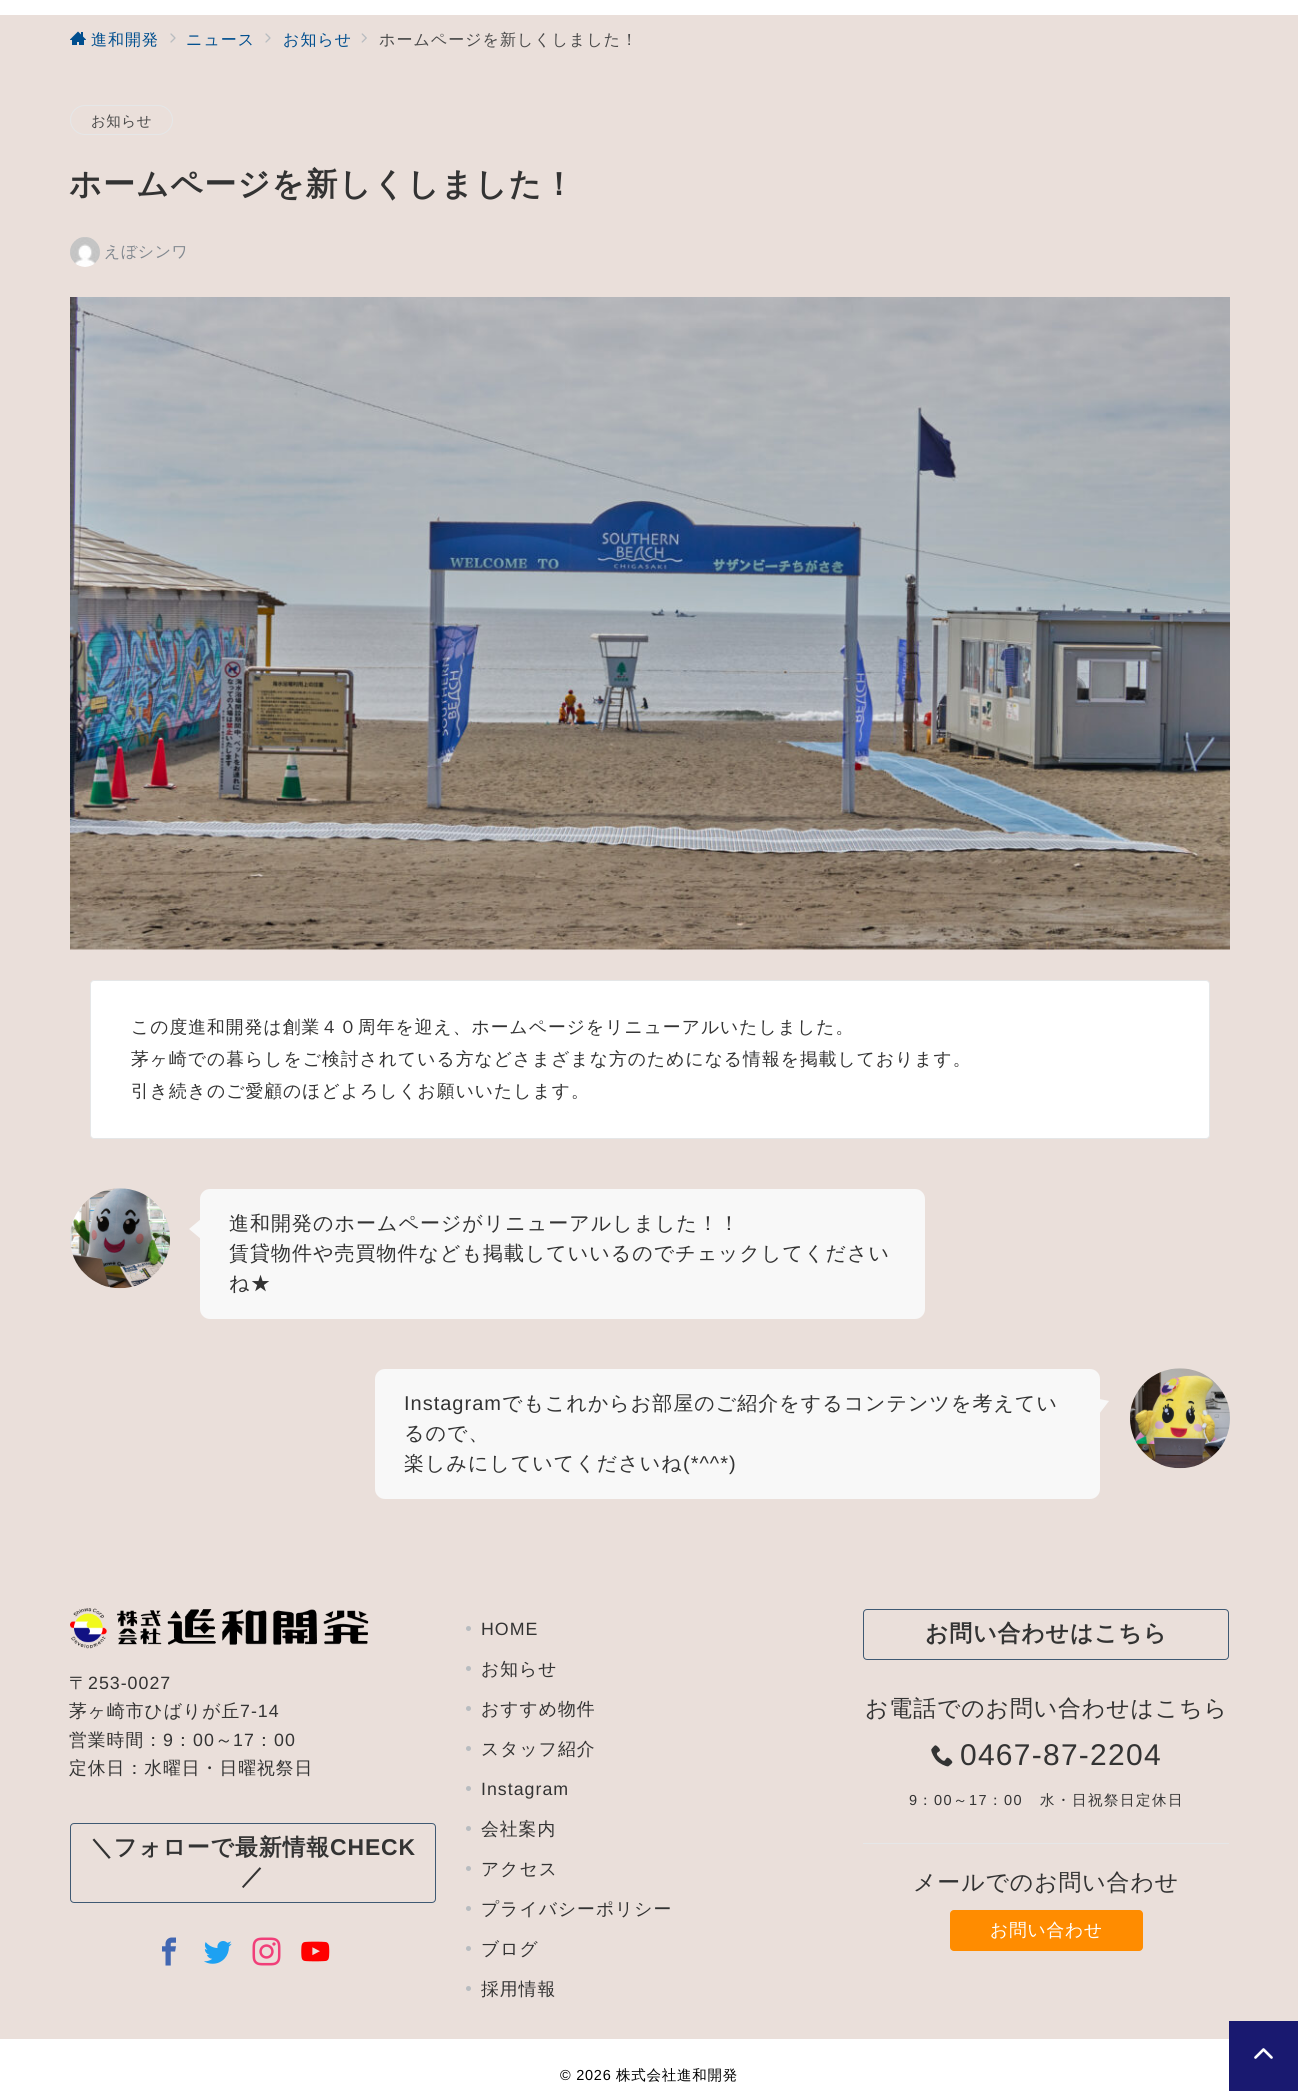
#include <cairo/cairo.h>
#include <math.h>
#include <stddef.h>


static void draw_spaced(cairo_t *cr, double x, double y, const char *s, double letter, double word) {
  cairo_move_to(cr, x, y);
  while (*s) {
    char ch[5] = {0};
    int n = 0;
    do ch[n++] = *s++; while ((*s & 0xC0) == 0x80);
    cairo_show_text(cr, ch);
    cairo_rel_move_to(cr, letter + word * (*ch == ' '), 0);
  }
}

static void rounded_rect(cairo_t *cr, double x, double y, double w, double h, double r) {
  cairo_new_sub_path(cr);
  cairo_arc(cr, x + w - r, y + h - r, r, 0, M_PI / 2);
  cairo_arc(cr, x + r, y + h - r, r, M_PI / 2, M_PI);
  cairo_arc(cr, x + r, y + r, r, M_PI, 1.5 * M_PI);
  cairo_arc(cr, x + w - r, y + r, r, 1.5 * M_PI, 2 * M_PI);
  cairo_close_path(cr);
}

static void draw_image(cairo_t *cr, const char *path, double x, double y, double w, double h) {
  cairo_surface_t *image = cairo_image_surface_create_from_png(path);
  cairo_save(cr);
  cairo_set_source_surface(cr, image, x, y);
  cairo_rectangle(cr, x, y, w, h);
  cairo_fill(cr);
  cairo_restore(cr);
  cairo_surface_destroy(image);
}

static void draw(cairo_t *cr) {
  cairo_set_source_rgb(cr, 234 / 255.0, 223 / 255.0, 218 / 255.0);
  cairo_paint(cr);
  cairo_set_source_rgb(cr, 1, 1, 1);
  cairo_rectangle(cr, 0, 0, 1298, 15);
  cairo_fill(cr);
  draw_image(cr, "images/1.png", 70, 31, 16, 14);
  draw_image(cr, "images/2.png", 170, 33, 6, 10);
  draw_image(cr, "images/2.png", 265, 33, 6, 10);
  draw_image(cr, "images/3.png", 361, 33, 6, 10);
  rounded_rect(cr, 70.5, 105.5, 102, 29, 14.5);
  cairo_set_source_rgb(cr, 229 / 255.0, 231 / 255.0, 232 / 255.0);
  cairo_set_line_width(cr, 1);
  cairo_stroke(cr);
  draw_image(cr, "images/4.png", 70, 237, 30, 30);
  draw_image(cr, "images/5.png", 70, 297, 1160, 653);
  cairo_set_source_rgb(cr, 1, 1, 1);
  rounded_rect(cr, 90.5, 980.5, 1119, 158, 3.5);
  cairo_fill_preserve(cr);
  cairo_set_source_rgb(cr, 229 / 255.0, 231 / 255.0, 232 / 255.0);
  cairo_stroke(cr);
  draw_image(cr, "images/6.png", 70, 1188, 100, 101);
  cairo_set_source_rgb(cr, 248 / 255.0, 248 / 255.0, 248 / 255.0);
  rounded_rect(cr, 200, 1189, 725, 130, 10);
  cairo_fill(cr);
  cairo_new_path(cr);
  cairo_move_to(cr, 201, 1219);
  cairo_line_to(cr, 201, 1239);
  cairo_line_to(cr, 189, 1229);
  cairo_close_path(cr);
  cairo_fill(cr);
  rounded_rect(cr, 375, 1369, 725, 130, 10);
  cairo_fill(cr);
  cairo_new_path(cr);
  cairo_move_to(cr, 1099, 1414);
  cairo_line_to(cr, 1099, 1399);
  cairo_line_to(cr, 1109, 1401);
  cairo_close_path(cr);
  cairo_fill(cr);
  draw_image(cr, "images/7.png", 1130, 1368, 100, 101);
  draw_image(cr, "images/8.png", 70, 1608, 299, 41);
  rounded_rect(cr, 70.5, 1823.5, 365, 79, 3.5);
  cairo_set_source_rgb(cr, 63 / 255.0, 89 / 255.0, 115 / 255.0);
  cairo_stroke(cr);
  draw_image(cr, "images/9.png", 162, 1937, 14, 29);
  draw_image(cr, "images/10.png", 204, 1941, 28, 23);
  draw_image(cr, "images/11.png", 252, 1937, 29, 29);
  draw_image(cr, "images/12.png", 301, 1941, 29, 21);
  cairo_set_source_rgb(cr, 184 / 255.0, 188 / 255.0, 192 / 255.0);
  cairo_arc(cr, 468.5, 1628.5, 2.5, 0, 2 * M_PI);
  cairo_fill(cr);
  cairo_arc(cr, 468.5, 1668.5, 2.5, 0, 2 * M_PI);
  cairo_fill(cr);
  cairo_arc(cr, 468.5, 1708.5, 2.5, 0, 2 * M_PI);
  cairo_fill(cr);
  cairo_arc(cr, 468.5, 1748.5, 2.5, 0, 2 * M_PI);
  cairo_fill(cr);
  cairo_arc(cr, 468.5, 1788.5, 2.5, 0, 2 * M_PI);
  cairo_fill(cr);
  cairo_arc(cr, 468.5, 1828.5, 2.5, 0, 2 * M_PI);
  cairo_fill(cr);
  cairo_arc(cr, 468.5, 1868.5, 2.5, 0, 2 * M_PI);
  cairo_fill(cr);
  cairo_arc(cr, 468.5, 1908.5, 2.5, 0, 2 * M_PI);
  cairo_fill(cr);
  cairo_arc(cr, 468.5, 1948.5, 2.5, 0, 2 * M_PI);
  cairo_fill(cr);
  cairo_arc(cr, 468.5, 1988.5, 2.5, 0, 2 * M_PI);
  cairo_fill(cr);
  rounded_rect(cr, 863.5, 1609.5, 365, 50, 3.5);
  cairo_set_source_rgb(cr, 63 / 255.0, 89 / 255.0, 115 / 255.0);
  cairo_stroke(cr);
  draw_image(cr, "images/13.png", 931, 1745, 22, 22);
  cairo_set_source_rgb(cr, 229 / 255.0, 231 / 255.0, 232 / 255.0);
  cairo_rectangle(cr, 863, 1843, 366, 1);
  cairo_fill(cr);
  cairo_set_source_rgb(cr, 1, 140 / 255.0, 0);
  rounded_rect(cr, 950, 1910, 193, 41, 4);
  cairo_fill(cr);
  cairo_set_source_rgb(cr, 1, 1, 1);
  cairo_rectangle(cr, 0, 2039, 1229, 52);
  cairo_fill(cr);
  cairo_set_source_rgb(cr, 25 / 255.0, 25 / 255.0, 112 / 255.0);
  cairo_rectangle(cr, 1229, 2021, 69, 70);
  cairo_fill(cr);
  draw_image(cr, "images/14.png", 1254, 2048, 19, 11);
  cairo_select_font_face(cr, "WenQuanYi Zen Hei Medium", CAIRO_FONT_SLANT_NORMAL, CAIRO_FONT_WEIGHT_NORMAL);
  cairo_set_font_size(cr, 16);
  cairo_set_source_rgb(cr, 0, 78 / 255.0, 142 / 255.0);
  draw_spaced(cr, 91, 45, "進和開発", 1, 0);
  draw_spaced(cr, 186, 45, "ニュース", 1, 0);
  draw_spaced(cr, 283, 45, "お知らせ", 1, 0);
  cairo_set_source_rgb(cr, 72 / 255.0, 72 / 255.0, 72 / 255.0);
  draw_spaced(cr, 379, 45, "ホームページを新しくしました！", 1, 0);
  cairo_set_font_size(cr, 14.5);
  draw_spaced(cr, 91, 126, "お知らせ", 0.5, 0);
  cairo_select_font_face(cr, "WenQuanYi Zen Hei", CAIRO_FONT_SLANT_NORMAL, CAIRO_FONT_WEIGHT_BOLD);
  cairo_set_font_size(cr, 32);
  cairo_set_source_rgb(cr, 51 / 255.0, 51 / 255.0, 51 / 255.0);
  draw_spaced(cr, 69, 195, "ホームページを新しくしました！", 1.25, 0);
  cairo_select_font_face(cr, "WenQuanYi Zen Hei Medium", CAIRO_FONT_SLANT_NORMAL, CAIRO_FONT_WEIGHT_NORMAL);
  cairo_set_font_size(cr, 16);
  cairo_set_source_rgb(cr, 130 / 255.0, 137 / 255.0, 144 / 255.0);
  draw_spaced(cr, 104, 257, "えぼシンワ", 0.5, 0);
  cairo_set_font_size(cr, 17.8);
  cairo_set_source_rgb(cr, 51 / 255.0, 51 / 255.0, 51 / 255.0);
  draw_spaced(cr, 131, 1033, "この度進和開発は創業４０周年を迎え、ホームページをリニューアルいたしました。", 1, 0);
  draw_spaced(cr, 131, 1065, "茅ヶ崎での暮らしをご検討されている方などさまざまな方のためになる情報を掲載しております。", 1, 0);
  draw_spaced(cr, 131, 1097, "引き続きのご愛顧のほどよろしくお願いいたします。", 1, 0);
  cairo_set_font_size(cr, 20);
  draw_spaced(cr, 229, 1230, "進和開発のホームページがリニューアルしました！！", 1, 0);
  draw_spaced(cr, 229, 1260, "賃貸物件や売買物件なども掲載していいるのでチェックしてください", 1, 0);
  draw_spaced(cr, 229, 1290, "ね★", 1, 0);
  cairo_select_font_face(cr, "Liberation Sans", CAIRO_FONT_SLANT_NORMAL, CAIRO_FONT_WEIGHT_NORMAL);
  draw_spaced(cr, 404, 1410, "Instagram", 1, 0);
  cairo_select_font_face(cr, "WenQuanYi Zen Hei Medium", CAIRO_FONT_SLANT_NORMAL, CAIRO_FONT_WEIGHT_NORMAL);
  draw_spaced(cr, 502, 1410, "でもこれからお部屋のご紹介をするコンテンツを考えてい", 1, 0);
  draw_spaced(cr, 404, 1440, "るので、", 1, 0);
  draw_spaced(cr, 404, 1470, "楽しみにしていてくださいね", 1, 0);
  cairo_select_font_face(cr, "Liberation Sans", CAIRO_FONT_SLANT_NORMAL, CAIRO_FONT_WEIGHT_NORMAL);
  draw_spaced(cr, 683, 1470, "(*^^*)", 1, 0);
  cairo_select_font_face(cr, "WenQuanYi Zen Hei Medium", CAIRO_FONT_SLANT_NORMAL, CAIRO_FONT_WEIGHT_NORMAL);
  cairo_set_font_size(cr, 17.8);
  draw_spaced(cr, 69, 1689, "〒", 1, 0);
  cairo_select_font_face(cr, "Liberation Sans", CAIRO_FONT_SLANT_NORMAL, CAIRO_FONT_WEIGHT_NORMAL);
  draw_spaced(cr, 88, 1689, "253-0027", 1, 0);
  cairo_select_font_face(cr, "WenQuanYi Zen Hei Medium", CAIRO_FONT_SLANT_NORMAL, CAIRO_FONT_WEIGHT_NORMAL);
  draw_spaced(cr, 69, 1717, "茅ヶ崎市ひばりが丘", 1, 0);
  cairo_select_font_face(cr, "Liberation Sans", CAIRO_FONT_SLANT_NORMAL, CAIRO_FONT_WEIGHT_NORMAL);
  draw_spaced(cr, 240, 1717, "7-14", 1, 0);
  cairo_select_font_face(cr, "WenQuanYi Zen Hei Medium", CAIRO_FONT_SLANT_NORMAL, CAIRO_FONT_WEIGHT_NORMAL);
  draw_spaced(cr, 69, 1746, "営業時間：", 1, 0);
  cairo_select_font_face(cr, "Liberation Sans", CAIRO_FONT_SLANT_NORMAL, CAIRO_FONT_WEIGHT_NORMAL);
  draw_spaced(cr, 163, 1746, "9", 1, 0);
  cairo_select_font_face(cr, "WenQuanYi Zen Hei Medium", CAIRO_FONT_SLANT_NORMAL, CAIRO_FONT_WEIGHT_NORMAL);
  draw_spaced(cr, 174, 1746, "：", 1, 0);
  cairo_select_font_face(cr, "Liberation Sans", CAIRO_FONT_SLANT_NORMAL, CAIRO_FONT_WEIGHT_NORMAL);
  draw_spaced(cr, 193, 1746, "00", 1, 0);
  cairo_select_font_face(cr, "WenQuanYi Zen Hei Medium", CAIRO_FONT_SLANT_NORMAL, CAIRO_FONT_WEIGHT_NORMAL);
  draw_spaced(cr, 215, 1746, "～", 1, 0);
  cairo_select_font_face(cr, "Liberation Sans", CAIRO_FONT_SLANT_NORMAL, CAIRO_FONT_WEIGHT_NORMAL);
  draw_spaced(cr, 233, 1746, "17", 1, 0);
  cairo_select_font_face(cr, "WenQuanYi Zen Hei Medium", CAIRO_FONT_SLANT_NORMAL, CAIRO_FONT_WEIGHT_NORMAL);
  draw_spaced(cr, 255, 1746, "：", 1, 0);
  cairo_select_font_face(cr, "Liberation Sans", CAIRO_FONT_SLANT_NORMAL, CAIRO_FONT_WEIGHT_NORMAL);
  draw_spaced(cr, 274, 1746, "00", 1, 0);
  cairo_select_font_face(cr, "WenQuanYi Zen Hei Medium", CAIRO_FONT_SLANT_NORMAL, CAIRO_FONT_WEIGHT_NORMAL);
  draw_spaced(cr, 69, 1774, "定休日：水曜日・日曜祝祭日", 1, 0);
  cairo_select_font_face(cr, "WenQuanYi Zen Hei", CAIRO_FONT_SLANT_NORMAL, CAIRO_FONT_WEIGHT_BOLD);
  cairo_set_font_size(cr, 22.9);
  draw_spaced(cr, 90, 1855, "＼フォローで最新情報", 0.9, 0);
  cairo_select_font_face(cr, "Liberation Sans", CAIRO_FONT_SLANT_NORMAL, CAIRO_FONT_WEIGHT_BOLD);
  draw_spaced(cr, 330, 1855, "CHECK", 0.9, 0);
  cairo_select_font_face(cr, "WenQuanYi Zen Hei", CAIRO_FONT_SLANT_NORMAL, CAIRO_FONT_WEIGHT_BOLD);
  draw_spaced(cr, 241, 1884, "／", 0.9, 0);
  cairo_select_font_face(cr, "Liberation Sans", CAIRO_FONT_SLANT_NORMAL, CAIRO_FONT_WEIGHT_NORMAL);
  cairo_set_font_size(cr, 17.8);
  draw_spaced(cr, 481, 1635, "HOME", 1, 0);
  cairo_select_font_face(cr, "WenQuanYi Zen Hei Medium", CAIRO_FONT_SLANT_NORMAL, CAIRO_FONT_WEIGHT_NORMAL);
  draw_spaced(cr, 481, 1675, "お知らせ", 1, 0);
  draw_spaced(cr, 481, 1715, "おすすめ物件", 1, 0);
  draw_spaced(cr, 481, 1755, "スタッフ紹介", 1, 0);
  cairo_select_font_face(cr, "Liberation Sans", CAIRO_FONT_SLANT_NORMAL, CAIRO_FONT_WEIGHT_NORMAL);
  draw_spaced(cr, 481, 1795, "Instagram", 1, 0);
  cairo_select_font_face(cr, "WenQuanYi Zen Hei Medium", CAIRO_FONT_SLANT_NORMAL, CAIRO_FONT_WEIGHT_NORMAL);
  draw_spaced(cr, 481, 1835, "会社案内", 1, 0);
  draw_spaced(cr, 481, 1875, "アクセス", 1, 0);
  draw_spaced(cr, 481, 1915, "プライバシーポリシー", 1, 0);
  draw_spaced(cr, 481, 1955, "ブログ", 1, 0);
  draw_spaced(cr, 481, 1995, "採用情報", 1, 0);
  cairo_select_font_face(cr, "WenQuanYi Zen Hei", CAIRO_FONT_SLANT_NORMAL, CAIRO_FONT_WEIGHT_BOLD);
  cairo_set_font_size(cr, 22.9);
  draw_spaced(cr, 925, 1641, "お問い合わせはこちら", 0.9, 0);
  cairo_select_font_face(cr, "WenQuanYi Zen Hei Medium", CAIRO_FONT_SLANT_NORMAL, CAIRO_FONT_WEIGHT_NORMAL);
  draw_spaced(cr, 865, 1716, "お電話でのお問い合わせはこちら", 0.9, 0);
  cairo_select_font_face(cr, "Liberation Sans", CAIRO_FONT_SLANT_NORMAL, CAIRO_FONT_WEIGHT_NORMAL);
  cairo_set_font_size(cr, 30);
  draw_spaced(cr, 960, 1765, "0467-87-2204", 1.25, 0);
  cairo_set_font_size(cr, 14.5);
  draw_spaced(cr, 909, 1805, "9", 1.5, 0);
  cairo_select_font_face(cr, "WenQuanYi Zen Hei Medium", CAIRO_FONT_SLANT_NORMAL, CAIRO_FONT_WEIGHT_NORMAL);
  draw_spaced(cr, 918, 1805, "：", 1.5, 0);
  cairo_select_font_face(cr, "Liberation Sans", CAIRO_FONT_SLANT_NORMAL, CAIRO_FONT_WEIGHT_NORMAL);
  draw_spaced(cr, 934, 1805, "00", 1.5, 0);
  cairo_select_font_face(cr, "WenQuanYi Zen Hei Medium", CAIRO_FONT_SLANT_NORMAL, CAIRO_FONT_WEIGHT_NORMAL);
  draw_spaced(cr, 953, 1805, "～", 1.5, 0);
  cairo_select_font_face(cr, "Liberation Sans", CAIRO_FONT_SLANT_NORMAL, CAIRO_FONT_WEIGHT_NORMAL);
  draw_spaced(cr, 969, 1805, "17", 1.5, 0);
  cairo_select_font_face(cr, "WenQuanYi Zen Hei Medium", CAIRO_FONT_SLANT_NORMAL, CAIRO_FONT_WEIGHT_NORMAL);
  draw_spaced(cr, 988, 1805, "：", 1.5, 0);
  cairo_select_font_face(cr, "Liberation Sans", CAIRO_FONT_SLANT_NORMAL, CAIRO_FONT_WEIGHT_NORMAL);
  draw_spaced(cr, 1004, 1805, "00", 1.5, 0);
  cairo_select_font_face(cr, "WenQuanYi Zen Hei Medium", CAIRO_FONT_SLANT_NORMAL, CAIRO_FONT_WEIGHT_NORMAL);
  draw_spaced(cr, 1040, 1805, "水・日祝祭日定休日", 1.5, 0);
  cairo_set_font_size(cr, 22.9);
  draw_spaced(cr, 913, 1890, "メールでのお問い合わせ", 0.9, 0);
  cairo_set_font_size(cr, 17.8);
  cairo_set_source_rgb(cr, 1, 1, 1);
  draw_spaced(cr, 990, 1936, "お問い合わせ", 0.75, 0);
  cairo_select_font_face(cr, "Liberation Sans", CAIRO_FONT_SLANT_NORMAL, CAIRO_FONT_WEIGHT_NORMAL);
  cairo_set_font_size(cr, 14.5);
  cairo_set_source_rgb(cr, 0, 0, 0);
  draw_spaced(cr, 560, 2080, "© 2026", 0.75, 0);
  cairo_select_font_face(cr, "WenQuanYi Zen Hei Medium", CAIRO_FONT_SLANT_NORMAL, CAIRO_FONT_WEIGHT_NORMAL);
  draw_spaced(cr, 616, 2080, "株式会社進和開発", 0.75, 0);
}

int main(void) {
  cairo_surface_t *surface = cairo_image_surface_create(CAIRO_FORMAT_RGB24, 1298, 2091);
  cairo_t *cr = cairo_create(surface);
  cairo_font_options_t *options = cairo_font_options_create();
  cairo_font_options_set_hint_metrics(options, CAIRO_HINT_METRICS_OFF);
  cairo_font_options_set_hint_style(options, CAIRO_HINT_STYLE_NONE);
  cairo_set_font_options(cr, options);
  cairo_set_miter_limit(cr, 4);
  draw(cr);
  cairo_surface_write_to_png(surface, "out.png");
  cairo_font_options_destroy(options);
  cairo_destroy(cr);
  cairo_surface_destroy(surface);
  return 0;
}
